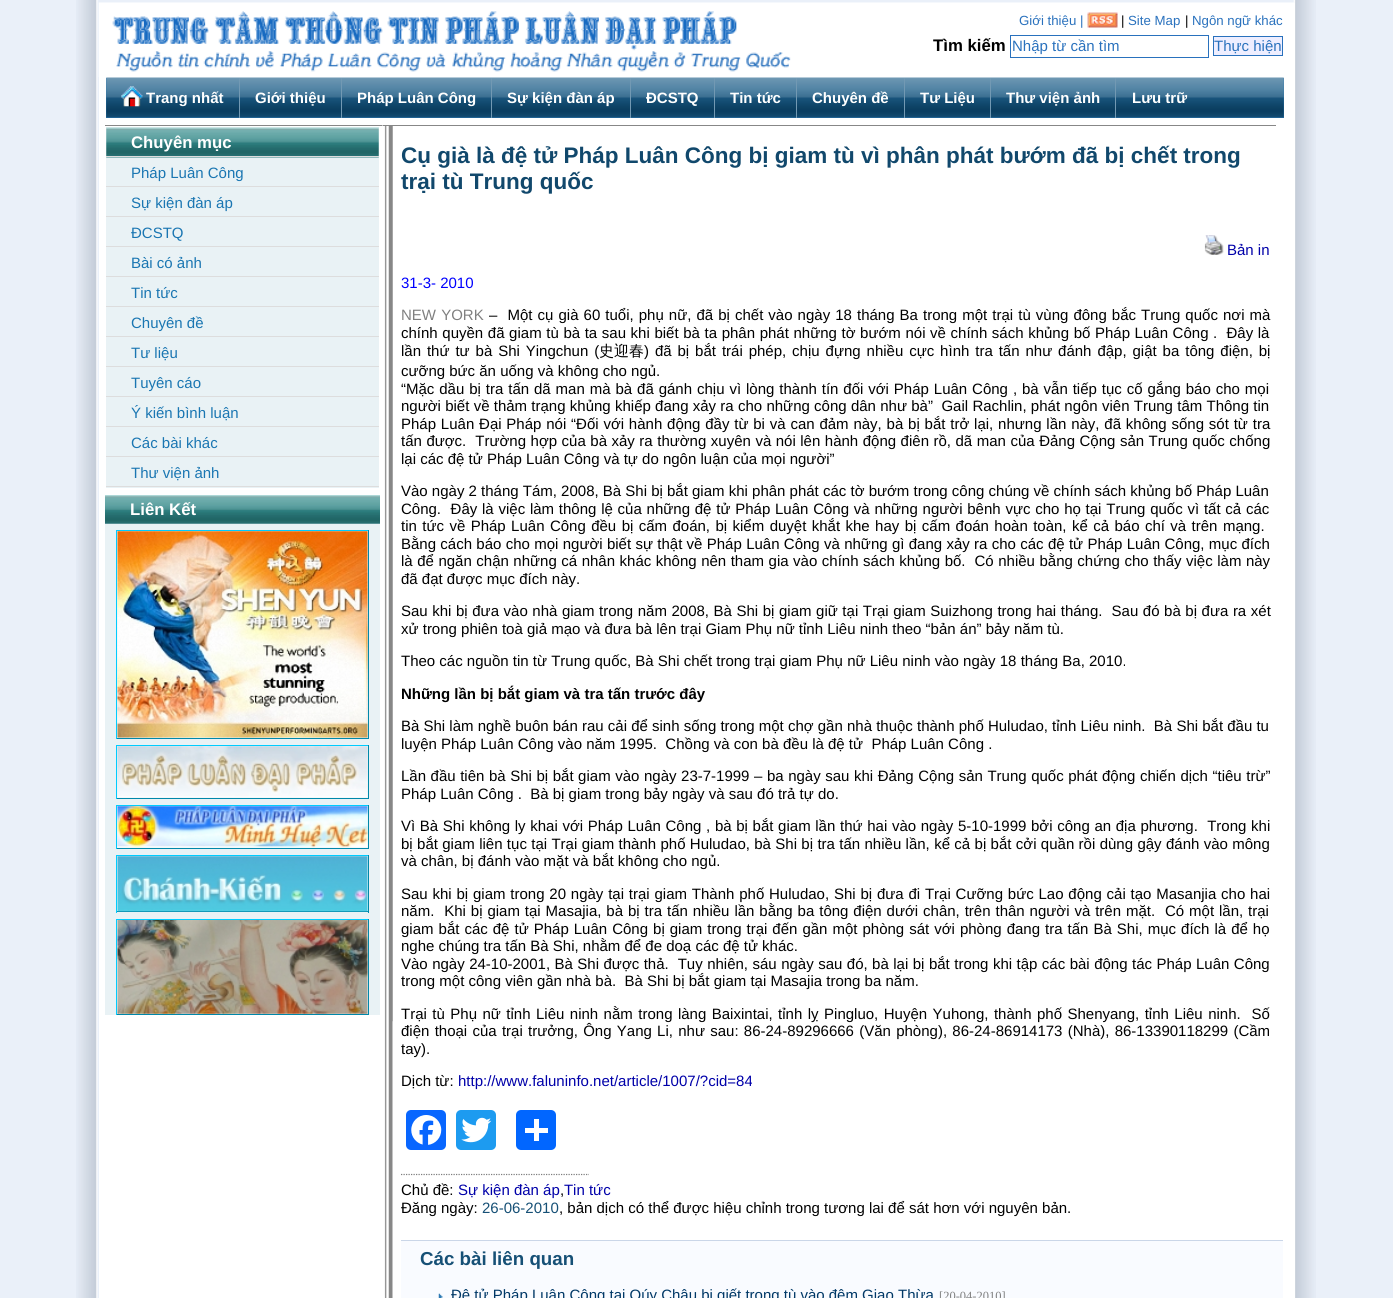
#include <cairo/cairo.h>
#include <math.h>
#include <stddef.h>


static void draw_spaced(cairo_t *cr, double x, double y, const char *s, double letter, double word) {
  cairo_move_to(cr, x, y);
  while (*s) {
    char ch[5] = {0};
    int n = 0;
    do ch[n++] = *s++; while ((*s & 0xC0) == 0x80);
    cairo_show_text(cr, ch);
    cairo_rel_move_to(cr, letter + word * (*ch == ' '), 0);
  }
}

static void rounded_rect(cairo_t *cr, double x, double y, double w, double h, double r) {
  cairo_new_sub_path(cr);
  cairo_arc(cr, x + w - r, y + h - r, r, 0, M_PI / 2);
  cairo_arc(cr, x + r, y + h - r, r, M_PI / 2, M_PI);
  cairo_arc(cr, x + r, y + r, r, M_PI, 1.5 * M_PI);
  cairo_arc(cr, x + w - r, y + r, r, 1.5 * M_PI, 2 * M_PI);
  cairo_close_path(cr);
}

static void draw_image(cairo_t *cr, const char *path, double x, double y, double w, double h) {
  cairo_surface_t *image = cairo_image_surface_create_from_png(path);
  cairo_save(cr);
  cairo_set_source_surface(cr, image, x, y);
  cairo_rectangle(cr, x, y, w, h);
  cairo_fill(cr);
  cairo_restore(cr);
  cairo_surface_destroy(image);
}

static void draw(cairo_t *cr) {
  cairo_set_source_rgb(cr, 234 / 255.0, 240 / 255.0, 249 / 255.0);
  cairo_paint(cr);
  draw_image(cr, "images/1.png", 76, 0, 1240, 1298);
  cairo_set_source_rgb(cr, 1, 1, 1);
  cairo_rectangle(cr, 99, 3, 1196, 1295);
  cairo_fill(cr);
  draw_image(cr, "images/2.png", 98, 2, 1196, 75);
  draw_image(cr, "images/3.png", 1087, 12, 31, 16);
  cairo_rectangle(cr, 1010.5, 35.5, 198, 22);
  cairo_set_source_rgb(cr, 41 / 255.0, 113 / 255.0, 189 / 255.0);
  cairo_set_line_width(cr, 1);
  cairo_stroke(cr);
  cairo_set_source_rgb(cr, 238 / 255.0, 238 / 255.0, 1);
  cairo_rectangle(cr, 1213.5, 36.5, 69, 19);
  cairo_fill_preserve(cr);
  cairo_set_source_rgb(cr, 41 / 255.0, 113 / 255.0, 189 / 255.0);
  cairo_stroke(cr);
  cairo_set_source_rgb(cr, 44 / 255.0, 121 / 255.0, 179 / 255.0);
  cairo_rectangle(cr, 106, 78, 1178, 40);
  cairo_fill(cr);
  draw_image(cr, "images/4.png", 106, 77, 1178, 41);
  cairo_set_source_rgb(cr, 114 / 255.0, 153 / 255.0, 179 / 255.0);
  cairo_rectangle(cr, 239, 78, 1, 40);
  cairo_fill(cr);
  draw_image(cr, "images/5.png", 121, 86, 22, 21);
  cairo_rectangle(cr, 341, 78, 1, 40);
  cairo_fill(cr);
  cairo_rectangle(cr, 491, 78, 1, 40);
  cairo_fill(cr);
  cairo_rectangle(cr, 630, 78, 1, 40);
  cairo_fill(cr);
  cairo_rectangle(cr, 714, 78, 1, 40);
  cairo_fill(cr);
  cairo_rectangle(cr, 796, 78, 1, 40);
  cairo_fill(cr);
  cairo_rectangle(cr, 904, 78, 1, 40);
  cairo_fill(cr);
  cairo_rectangle(cr, 990, 78, 1, 40);
  cairo_fill(cr);
  cairo_rectangle(cr, 1115, 78, 1, 40);
  cairo_fill(cr);
  draw_image(cr, "images/6.png", 392, 126, 1, 896);
  cairo_set_source_rgb(cr, 135 / 255.0, 135 / 255.0, 135 / 255.0);
  cairo_rectangle(cr, 105, 125, 278, 1);
  cairo_fill(cr);
  cairo_set_source_rgb(cr, 233 / 255.0, 242 / 255.0, 245 / 255.0);
  cairo_rectangle(cr, 106, 127, 273, 361);
  cairo_fill(cr);
  draw_image(cr, "images/7.png", 106, 127, 273, 31);
  cairo_set_source_rgb(cr, 221 / 255.0, 221 / 255.0, 221 / 255.0);
  cairo_rectangle(cr, 106, 156, 273, 1);
  cairo_fill(cr);
  cairo_rectangle(cr, 106, 186, 273, 1);
  cairo_fill(cr);
  cairo_rectangle(cr, 106, 216, 273, 1);
  cairo_fill(cr);
  cairo_rectangle(cr, 106, 246, 273, 1);
  cairo_fill(cr);
  cairo_rectangle(cr, 106, 276, 273, 1);
  cairo_fill(cr);
  cairo_rectangle(cr, 106, 306, 273, 1);
  cairo_fill(cr);
  cairo_rectangle(cr, 106, 336, 273, 1);
  cairo_fill(cr);
  cairo_rectangle(cr, 106, 366, 273, 1);
  cairo_fill(cr);
  cairo_rectangle(cr, 106, 396, 273, 1);
  cairo_fill(cr);
  cairo_rectangle(cr, 106, 426, 273, 1);
  cairo_fill(cr);
  cairo_rectangle(cr, 106, 456, 273, 1);
  cairo_fill(cr);
  cairo_rectangle(cr, 106, 486, 273, 1);
  cairo_fill(cr);
  cairo_set_source_rgb(cr, 233 / 255.0, 242 / 255.0, 245 / 255.0);
  cairo_rectangle(cr, 105, 523, 275, 492);
  cairo_fill(cr);
  draw_image(cr, "images/8.png", 105, 495, 275, 29);
  cairo_set_source_rgb(cr, 0, 204 / 255.0, 1);
  cairo_rectangle(cr, 116, 530, 253, 1);
  cairo_fill(cr);
  cairo_set_source_rgb(cr, 0, 136 / 255.0, 170 / 255.0);
  cairo_rectangle(cr, 368, 530, 1, 209);
  cairo_fill(cr);
  cairo_rectangle(cr, 116, 738, 253, 1);
  cairo_fill(cr);
  cairo_set_source_rgb(cr, 0, 204 / 255.0, 1);
  cairo_rectangle(cr, 116, 530, 1, 209);
  cairo_fill(cr);
  draw_image(cr, "images/9.png", 117, 531, 251, 207);
  cairo_rectangle(cr, 116, 745, 253, 1);
  cairo_fill(cr);
  cairo_set_source_rgb(cr, 0, 136 / 255.0, 170 / 255.0);
  cairo_rectangle(cr, 368, 745, 1, 54);
  cairo_fill(cr);
  cairo_rectangle(cr, 116, 798, 253, 1);
  cairo_fill(cr);
  cairo_set_source_rgb(cr, 0, 204 / 255.0, 1);
  cairo_rectangle(cr, 116, 745, 1, 54);
  cairo_fill(cr);
  draw_image(cr, "images/10.png", 117, 746, 251, 52);
  cairo_rectangle(cr, 116, 805, 253, 1);
  cairo_fill(cr);
  cairo_set_source_rgb(cr, 0, 136 / 255.0, 170 / 255.0);
  cairo_rectangle(cr, 368, 805, 1, 44);
  cairo_fill(cr);
  cairo_rectangle(cr, 116, 848, 253, 1);
  cairo_fill(cr);
  cairo_set_source_rgb(cr, 0, 204 / 255.0, 1);
  cairo_rectangle(cr, 116, 805, 1, 44);
  cairo_fill(cr);
  draw_image(cr, "images/11.png", 117, 806, 251, 42);
  cairo_rectangle(cr, 116, 855, 253, 1);
  cairo_fill(cr);
  cairo_set_source_rgb(cr, 0, 136 / 255.0, 170 / 255.0);
  cairo_rectangle(cr, 368, 855, 1, 58);
  cairo_fill(cr);
  cairo_rectangle(cr, 116, 911, 253, 1);
  cairo_fill(cr);
  cairo_set_source_rgb(cr, 0, 204 / 255.0, 1);
  cairo_rectangle(cr, 116, 855, 1, 58);
  cairo_fill(cr);
  draw_image(cr, "images/12.png", 117, 856, 251, 56);
  cairo_rectangle(cr, 116, 919, 253, 1);
  cairo_fill(cr);
  cairo_set_source_rgb(cr, 0, 136 / 255.0, 170 / 255.0);
  cairo_rectangle(cr, 368, 919, 1, 96);
  cairo_fill(cr);
  cairo_rectangle(cr, 116, 1014, 253, 1);
  cairo_fill(cr);
  cairo_set_source_rgb(cr, 0, 204 / 255.0, 1);
  cairo_rectangle(cr, 116, 919, 1, 96);
  cairo_fill(cr);
  draw_image(cr, "images/13.png", 117, 920, 251, 94);
  draw_image(cr, "images/14.png", 382, 125, 11, 1173);
  cairo_set_source_rgb(cr, 135 / 255.0, 135 / 255.0, 135 / 255.0);
  cairo_rectangle(cr, 383, 125, 893, 1);
  cairo_fill(cr);
  draw_image(cr, "images/15.png", 1204, 235, 20, 20);
  cairo_set_source_rgb(cr, 8 / 255.0, 102 / 255.0, 1);
  rounded_rect(cr, 406, 1110, 40, 40, 5);
  cairo_fill(cr);
  draw_image(cr, "images/16.png", 411, 1115, 31, 30);
  cairo_set_source_rgb(cr, 29 / 255.0, 155 / 255.0, 240 / 255.0);
  rounded_rect(cr, 456, 1110, 40, 40, 5);
  cairo_fill(cr);
  draw_image(cr, "images/17.png", 461, 1117, 31, 26);
  cairo_set_source_rgb(cr, 1 / 255.0, 102 / 255.0, 1);
  rounded_rect(cr, 516, 1110, 40, 40, 5);
  cairo_fill(cr);
  cairo_set_source_rgb(cr, 1, 1, 1);
  cairo_rectangle(cr, 534, 1119, 5, 22);
  cairo_fill(cr);
  cairo_rectangle(cr, 525, 1128, 23, 5);
  cairo_fill(cr);
  cairo_new_path(cr);
  cairo_move_to(cr, 401, 1174.5);
  cairo_line_to(cr, 589, 1174.5);
  cairo_set_source_rgb(cr, 125 / 255.0, 125 / 255.0, 125 / 255.0);
  cairo_set_line_width(cr, 1.2);
  cairo_set_dash(cr, (double[]){1.25, 1.25}, 2, 0);
  cairo_stroke(cr);
  cairo_set_source_rgb(cr, 249 / 255.0, 251 / 255.0, 1);
  cairo_rectangle(cr, 401, 1241, 882, 57);
  cairo_fill(cr);
  cairo_set_source_rgb(cr, 202 / 255.0, 214 / 255.0, 232 / 255.0);
  cairo_rectangle(cr, 401, 1240, 882, 1);
  cairo_fill(cr);
  draw_image(cr, "images/18.png", 438, 1293, 5, 5);
  cairo_select_font_face(cr, "Liberation Sans", CAIRO_FONT_SLANT_NORMAL, CAIRO_FONT_WEIGHT_NORMAL);
  cairo_set_font_size(cr, 13.25);
  cairo_set_source_rgb(cr, 41 / 255.0, 113 / 255.0, 189 / 255.0);
  cairo_move_to(cr, 1019, 25);
  cairo_show_text(cr, "Giới thiệu |");
  cairo_set_source_rgb(cr, 0, 0, 0);
  cairo_move_to(cr, 1121, 25);
  cairo_show_text(cr, "|");
  cairo_set_source_rgb(cr, 41 / 255.0, 113 / 255.0, 189 / 255.0);
  cairo_move_to(cr, 1128, 25);
  cairo_show_text(cr, "Site Map");
  cairo_set_source_rgb(cr, 0, 0, 0);
  cairo_move_to(cr, 1185, 25);
  cairo_show_text(cr, "|");
  cairo_set_source_rgb(cr, 41 / 255.0, 113 / 255.0, 189 / 255.0);
  cairo_move_to(cr, 1192, 25);
  cairo_show_text(cr, "Ngôn ngữ khác");
  cairo_select_font_face(cr, "Liberation Sans", CAIRO_FONT_SLANT_NORMAL, CAIRO_FONT_WEIGHT_BOLD);
  cairo_set_font_size(cr, 16.75);
  cairo_set_source_rgb(cr, 0, 0, 0);
  cairo_move_to(cr, 933, 51);
  cairo_show_text(cr, "Tìm kiếm");
  cairo_select_font_face(cr, "Liberation Sans", CAIRO_FONT_SLANT_NORMAL, CAIRO_FONT_WEIGHT_NORMAL);
  cairo_set_font_size(cr, 15);
  cairo_set_source_rgb(cr, 41 / 255.0, 113 / 255.0, 189 / 255.0);
  cairo_move_to(cr, 1012, 51);
  cairo_show_text(cr, "Nhập từ cần tìm");
  cairo_move_to(cr, 1214, 51);
  cairo_show_text(cr, "Thực hiện");
  cairo_select_font_face(cr, "Liberation Sans", CAIRO_FONT_SLANT_NORMAL, CAIRO_FONT_WEIGHT_BOLD);
  cairo_set_source_rgb(cr, 1, 1, 1);
  cairo_move_to(cr, 146, 103);
  cairo_show_text(cr, "Trang nhất");
  cairo_move_to(cr, 255, 103);
  cairo_show_text(cr, "Giới thiệu");
  cairo_move_to(cr, 357, 103);
  cairo_show_text(cr, "Pháp Luân Công");
  cairo_move_to(cr, 507, 103);
  cairo_show_text(cr, "Sự kiện đàn áp");
  cairo_move_to(cr, 646, 103);
  cairo_show_text(cr, "ĐCSTQ");
  cairo_move_to(cr, 730, 103);
  cairo_show_text(cr, "Tin tức");
  cairo_move_to(cr, 812, 103);
  cairo_show_text(cr, "Chuyên đề");
  cairo_move_to(cr, 920, 103);
  cairo_show_text(cr, "Tư Liệu");
  cairo_move_to(cr, 1006, 103);
  cairo_show_text(cr, "Thư viện ảnh");
  cairo_move_to(cr, 1132, 103);
  cairo_show_text(cr, "Lưu trữ");
  cairo_set_font_size(cr, 16.75);
  cairo_move_to(cr, 131, 148);
  cairo_show_text(cr, "Chuyên mục");
  cairo_select_font_face(cr, "Liberation Sans", CAIRO_FONT_SLANT_NORMAL, CAIRO_FONT_WEIGHT_NORMAL);
  cairo_set_font_size(cr, 15);
  cairo_set_source_rgb(cr, 26 / 255.0, 118 / 255.0, 178 / 255.0);
  cairo_move_to(cr, 131, 178);
  cairo_show_text(cr, "Pháp Luân Công");
  cairo_move_to(cr, 131, 208);
  cairo_show_text(cr, "Sự kiện đàn áp");
  cairo_move_to(cr, 131, 238);
  cairo_show_text(cr, "ĐCSTQ");
  cairo_move_to(cr, 131, 268);
  cairo_show_text(cr, "Bài có ảnh");
  cairo_move_to(cr, 131, 298);
  cairo_show_text(cr, "Tin tức");
  cairo_move_to(cr, 131, 328);
  cairo_show_text(cr, "Chuyên đề");
  cairo_move_to(cr, 131, 358);
  cairo_show_text(cr, "Tư liệu");
  cairo_move_to(cr, 131, 388);
  cairo_show_text(cr, "Tuyên cáo");
  cairo_move_to(cr, 131, 418);
  cairo_show_text(cr, "Ý kiến bình luận");
  cairo_move_to(cr, 131, 448);
  cairo_show_text(cr, "Các bài khác");
  cairo_move_to(cr, 131, 478);
  cairo_show_text(cr, "Thư viện ảnh");
  cairo_select_font_face(cr, "Liberation Sans", CAIRO_FONT_SLANT_NORMAL, CAIRO_FONT_WEIGHT_BOLD);
  cairo_set_font_size(cr, 16.75);
  cairo_set_source_rgb(cr, 1, 1, 1);
  cairo_move_to(cr, 130, 515);
  cairo_show_text(cr, "Liên Kết");
  cairo_set_font_size(cr, 22.5);
  cairo_set_source_rgb(cr, 17 / 255.0, 72 / 255.0, 108 / 255.0);
  cairo_move_to(cr, 401, 163);
  cairo_show_text(cr, "Cụ già là đệ tử Pháp Luân Công bị giam tù vì phân phát bướm đã bị chết trong");
  cairo_move_to(cr, 401, 189);
  cairo_show_text(cr, "trại tù Trung quốc");
  cairo_select_font_face(cr, "Liberation Sans", CAIRO_FONT_SLANT_NORMAL, CAIRO_FONT_WEIGHT_NORMAL);
  cairo_set_font_size(cr, 15);
  cairo_set_source_rgb(cr, 0, 0, 169 / 255.0);
  cairo_move_to(cr, 1227, 255);
  cairo_show_text(cr, "Bản in");
  cairo_set_source_rgb(cr, 0, 0, 1);
  cairo_move_to(cr, 401, 288);
  cairo_show_text(cr, "31-3- 2010");
  cairo_set_source_rgb(cr, 128 / 255.0, 128 / 255.0, 128 / 255.0);
  draw_spaced(cr, 401, 320, "NEW YORK", 0, 1);
  cairo_set_source_rgb(cr, 0, 0, 0);
  draw_spaced(cr, 489, 320, "–  Một cụ già 60 tuổi, phụ nữ, đã bị chết vào ngày 18 tháng Ba trong một trại tù vùng đông bắc Trung quốc nơi mà", 0, 0.9);
  draw_spaced(cr, 401, 338, "chính quyền đã giam tù bà ta sau khi biết bà ta phân phát những tờ bướm nói về chính sách khủng bố Pháp Luân Công .  Đây là", 0, 0.45);
  draw_spaced(cr, 401, 356, "lần thứ tư bà Shi Yingchun (", 0, 1.75);
  cairo_select_font_face(cr, "WenQuanYi Zen Hei Medium", CAIRO_FONT_SLANT_NORMAL, CAIRO_FONT_WEIGHT_NORMAL);
  cairo_move_to(cr, 599, 356);
  cairo_show_text(cr, "史迎春");
  cairo_select_font_face(cr, "Liberation Sans", CAIRO_FONT_SLANT_NORMAL, CAIRO_FONT_WEIGHT_NORMAL);
  draw_spaced(cr, 644, 356, ") đã bị bắt trái phép, chịu đựng nhiều cực hình tra tấn như đánh đập, giật ba tông điện, bị", 0, 1.75);
  cairo_move_to(cr, 401, 376);
  cairo_show_text(cr, "cưỡng bức ăn uống và không cho ngủ.");
  draw_spaced(cr, 401, 394, "“Mặc dầu bị tra tấn dã man mà bà đã gánh chịu vì lòng thành tín đối với Pháp Luân Công , bà vẫn tiếp tục cố gắng báo cho mọi", 0, 0.75);
  draw_spaced(cr, 401, 411, "người biết về thảm trạng khủng khiếp đang xảy ra cho những công dân như bà”  Gail Rachlin, phát ngôn viên Trung tâm Thông tin", 0, 0.1);
  draw_spaced(cr, 401, 429, "Pháp Luân Đại Pháp nói “Đối với hành động đầy từ bi và can đảm này, bà bị bắt trở lại, nhưng lần này, đã không sống sót từ tra", 0, 0.65);
  draw_spaced(cr, 401, 446, "tấn được.  Trường hợp của bà xảy ra thường xuyên và nói lên hành động điên rồ, dã man của Đảng Cộng sản Trung quốc chống", 0, 0.35);
  cairo_move_to(cr, 401, 464);
  cairo_show_text(cr, "lại các đệ tử Pháp Luân Công và tự do ngôn luận của mọi người”");
  cairo_move_to(cr, 401, 496);
  cairo_show_text(cr, "Vào ngày 2 tháng Tám, 2008, Bà Shi bị bắt giam khi phân phát các tờ bướm trong công chúng về chính sách khủng bố Pháp Luân");
  draw_spaced(cr, 401, 514, "Công.  Đây là việc làm thông lệ của những đệ tử Pháp Luân Công và những người bênh vực cho họ tại Trung quốc vì tất cả các", 0, 0.6);
  draw_spaced(cr, 401, 531, "tin tức về Pháp Luân Công đều bị cấm đoán, bị kiểm duyệt khắt khe hay bị cấm đoán hoàn toàn, kể cả báo chí và trên mạng.", 0, 1.25);
  draw_spaced(cr, 401, 549, "Bằng cách báo cho mọi người biết sự thật về Pháp Luân Công và những gì đang xảy ra cho các đệ tử Pháp Luân Công, mục đích", 0, 0.15);
  draw_spaced(cr, 401, 566, "là để ngăn chận những cá nhân khác không nên tham gia vào chính sách khủng bố.  Có nhiều bằng chứng cho thấy việc làm này", 0, 0.35);
  cairo_move_to(cr, 401, 584);
  cairo_show_text(cr, "đã đạt được mục đích này.");
  draw_spaced(cr, 401, 616, "Sau khi bị đưa vào nhà giam trong năm 2008, Bà Shi bị giam giữ tại Trại giam Suizhong trong hai tháng.  Sau đó bà bị đưa ra xét", 0, 0.4);
  cairo_move_to(cr, 401, 634);
  cairo_show_text(cr, "xử trong phiên toà giả mạo và đưa bà lên trại Giam Phụ nữ tỉnh Liêu ninh theo “bản án” bảy năm tù.");
  cairo_move_to(cr, 401, 666);
  cairo_show_text(cr, "Theo các nguồn tin từ Trung quốc, Bà Shi chết trong trại giam Phụ nữ Liêu ninh vào ngày 18 tháng Ba, 2010.");
  cairo_select_font_face(cr, "Liberation Sans", CAIRO_FONT_SLANT_NORMAL, CAIRO_FONT_WEIGHT_BOLD);
  cairo_move_to(cr, 401, 699);
  cairo_show_text(cr, "Những lần bị bắt giam và tra tấn trước đây");
  cairo_select_font_face(cr, "Liberation Sans", CAIRO_FONT_SLANT_NORMAL, CAIRO_FONT_WEIGHT_NORMAL);
  cairo_move_to(cr, 401, 731);
  cairo_show_text(cr, "Bà Shi làm nghề buôn bán rau cải để sinh sống trong một chợ gần nhà thuộc thành phố Huludao, tỉnh Liêu ninh.  Bà Shi bắt đầu tu");
  cairo_move_to(cr, 401, 749);
  cairo_show_text(cr, "luyện Pháp Luân Công vào năm 1995.  Chồng và con bà đều là đệ tử  Pháp Luân Công .");
  draw_spaced(cr, 401, 781, "Lần đầu tiên bà Shi bị bắt giam vào ngày 23-7-1999 – ba ngày sau khi Đảng Cộng sản Trung quốc phát động chiến dịch “tiêu trừ”", 0, 0.4);
  cairo_move_to(cr, 401, 799);
  cairo_show_text(cr, "Pháp Luân Công .  Bà bị giam trong bảy ngày và sau đó trả tự do.");
  draw_spaced(cr, 401, 831, "Vì Bà Shi không ly khai với Pháp Luân Công , bà bị bắt giam lần thứ hai vào ngày 5-10-1999 bởi công an địa phương.  Trong khi", 0, 0.5);
  draw_spaced(cr, 401, 849, "bị bắt giam liên tục tại Trại giam thành phố Huludao, bà Shi bị tra tấn nhiều lần, kể cả bị bắt cởi quần rồi dùng gậy đánh vào mông", 0, 0.2);
  cairo_move_to(cr, 401, 866);
  cairo_show_text(cr, "và chân, bị đánh vào mặt và bắt không cho ngủ.");
  draw_spaced(cr, 401, 899, "Sau khi bị giam trong 20 ngày tại trại giam Thành phố Huludao, Shi bị đưa đi Trại Cưỡng bức Lao động cải tạo Masanjia cho hai", 0, 0.65);
  draw_spaced(cr, 401, 916, "năm.  Khi bị giam tại Masajia, bà bị tra tấn nhiều lần bằng ba tông điện dưới chân, trên thân người và trên mặt.  Có một lần, trại", 0, 0.75);
  draw_spaced(cr, 401, 934, "giam bắt các đệ tử Pháp Luân Công bị giam trong trại đến gần một phòng sát với phòng đang tra tấn Bà Shi, mục đích là để họ", 0, 0.85);
  cairo_move_to(cr, 401, 951);
  cairo_show_text(cr, "nghe chúng tra tấn Bà Shi, nhằm để đe doạ các đệ tử khác.");
  draw_spaced(cr, 401, 969, "Vào ngày 24-10-2001, Bà Shi được thả.  Tuy nhiên, sáu ngày sau đó, bà lại bị bắt trong khi tập các bài động tác Pháp Luân Công", 0, 0.3);
  cairo_move_to(cr, 401, 986);
  cairo_show_text(cr, "trong một công viên gần nhà bà.  Bà Shi bị bắt giam tại Masajia trong ba năm.");
  draw_spaced(cr, 401, 1019, "Trại tù Phụ nữ tỉnh Liêu ninh nằm trong làng Baixintai, tỉnh lỵ Pingluo, Huyện Yuhong, thành phố Shenyang, tỉnh Liêu ninh.  Số", 0, 1.3);
  draw_spaced(cr, 401, 1036, "điện thoại của trại trưởng, Ông Yang Li, như sau: 86-24-89296666 (Văn phòng), 86-24-86914173 (Nhà), 86-13390118299 (Cầm", 0, 1.1);
  cairo_move_to(cr, 401, 1054);
  cairo_show_text(cr, "tay).");
  cairo_move_to(cr, 401, 1086);
  cairo_show_text(cr, "Dịch từ:");
  cairo_set_source_rgb(cr, 0, 0, 169 / 255.0);
  cairo_move_to(cr, 458, 1086);
  cairo_show_text(cr, "http://www.faluninfo.net/article/1007/?cid=84");
  cairo_set_source_rgb(cr, 0, 0, 0);
  cairo_move_to(cr, 401, 1195);
  cairo_show_text(cr, "Chủ đề:");
  cairo_set_source_rgb(cr, 0, 0, 169 / 255.0);
  cairo_move_to(cr, 458, 1195);
  cairo_show_text(cr, "Sự kiện đàn áp Tin tức");
  cairo_set_source_rgb(cr, 0, 0, 0);
  cairo_move_to(cr, 560, 1195);
  cairo_show_text(cr, ",");
  cairo_move_to(cr, 401, 1213);
  cairo_show_text(cr, "Đăng ngày:");
  cairo_set_source_rgb(cr, 22 / 255.0, 80 / 255.0, 118 / 255.0);
  cairo_move_to(cr, 482, 1213);
  cairo_show_text(cr, "26-06-2010");
  cairo_set_source_rgb(cr, 0, 0, 0);
  cairo_move_to(cr, 559, 1213);
  cairo_show_text(cr, ", bản dịch có thể được hiệu chỉnh trong tương lai để sát hơn với nguyên bản.");
  cairo_select_font_face(cr, "Liberation Sans", CAIRO_FONT_SLANT_NORMAL, CAIRO_FONT_WEIGHT_BOLD);
  cairo_set_font_size(cr, 18.75);
  cairo_set_source_rgb(cr, 22 / 255.0, 80 / 255.0, 118 / 255.0);
  cairo_move_to(cr, 420, 1265);
  cairo_show_text(cr, "Các bài liên quan");
  cairo_select_font_face(cr, "Liberation Sans", CAIRO_FONT_SLANT_NORMAL, CAIRO_FONT_WEIGHT_NORMAL);
  cairo_set_font_size(cr, 15);
  cairo_set_source_rgb(cr, 0, 56 / 255.0, 102 / 255.0);
  cairo_move_to(cr, 451, 1300);
  cairo_show_text(cr, "Đệ tử Pháp Luân Công tại Qúy Châu bị giết trong tù vào đêm Giao Thừa");
  cairo_select_font_face(cr, "Liberation Serif", CAIRO_FONT_SLANT_NORMAL, CAIRO_FONT_WEIGHT_NORMAL);
  cairo_set_font_size(cr, 12.5);
  cairo_set_source_rgb(cr, 128 / 255.0, 128 / 255.0, 128 / 255.0);
  cairo_move_to(cr, 939, 1300);
  cairo_show_text(cr, "[20-04-2010]");
}

int main(void) {
  cairo_surface_t *surface = cairo_image_surface_create(CAIRO_FORMAT_RGB24, 1393, 1298);
  cairo_t *cr = cairo_create(surface);
  cairo_font_options_t *options = cairo_font_options_create();
  cairo_font_options_set_hint_metrics(options, CAIRO_HINT_METRICS_OFF);
  cairo_font_options_set_hint_style(options, CAIRO_HINT_STYLE_NONE);
  cairo_set_font_options(cr, options);
  cairo_set_miter_limit(cr, 4);
  draw(cr);
  cairo_surface_write_to_png(surface, "out.png");
  cairo_font_options_destroy(options);
  cairo_destroy(cr);
  cairo_surface_destroy(surface);
  return 0;
}
